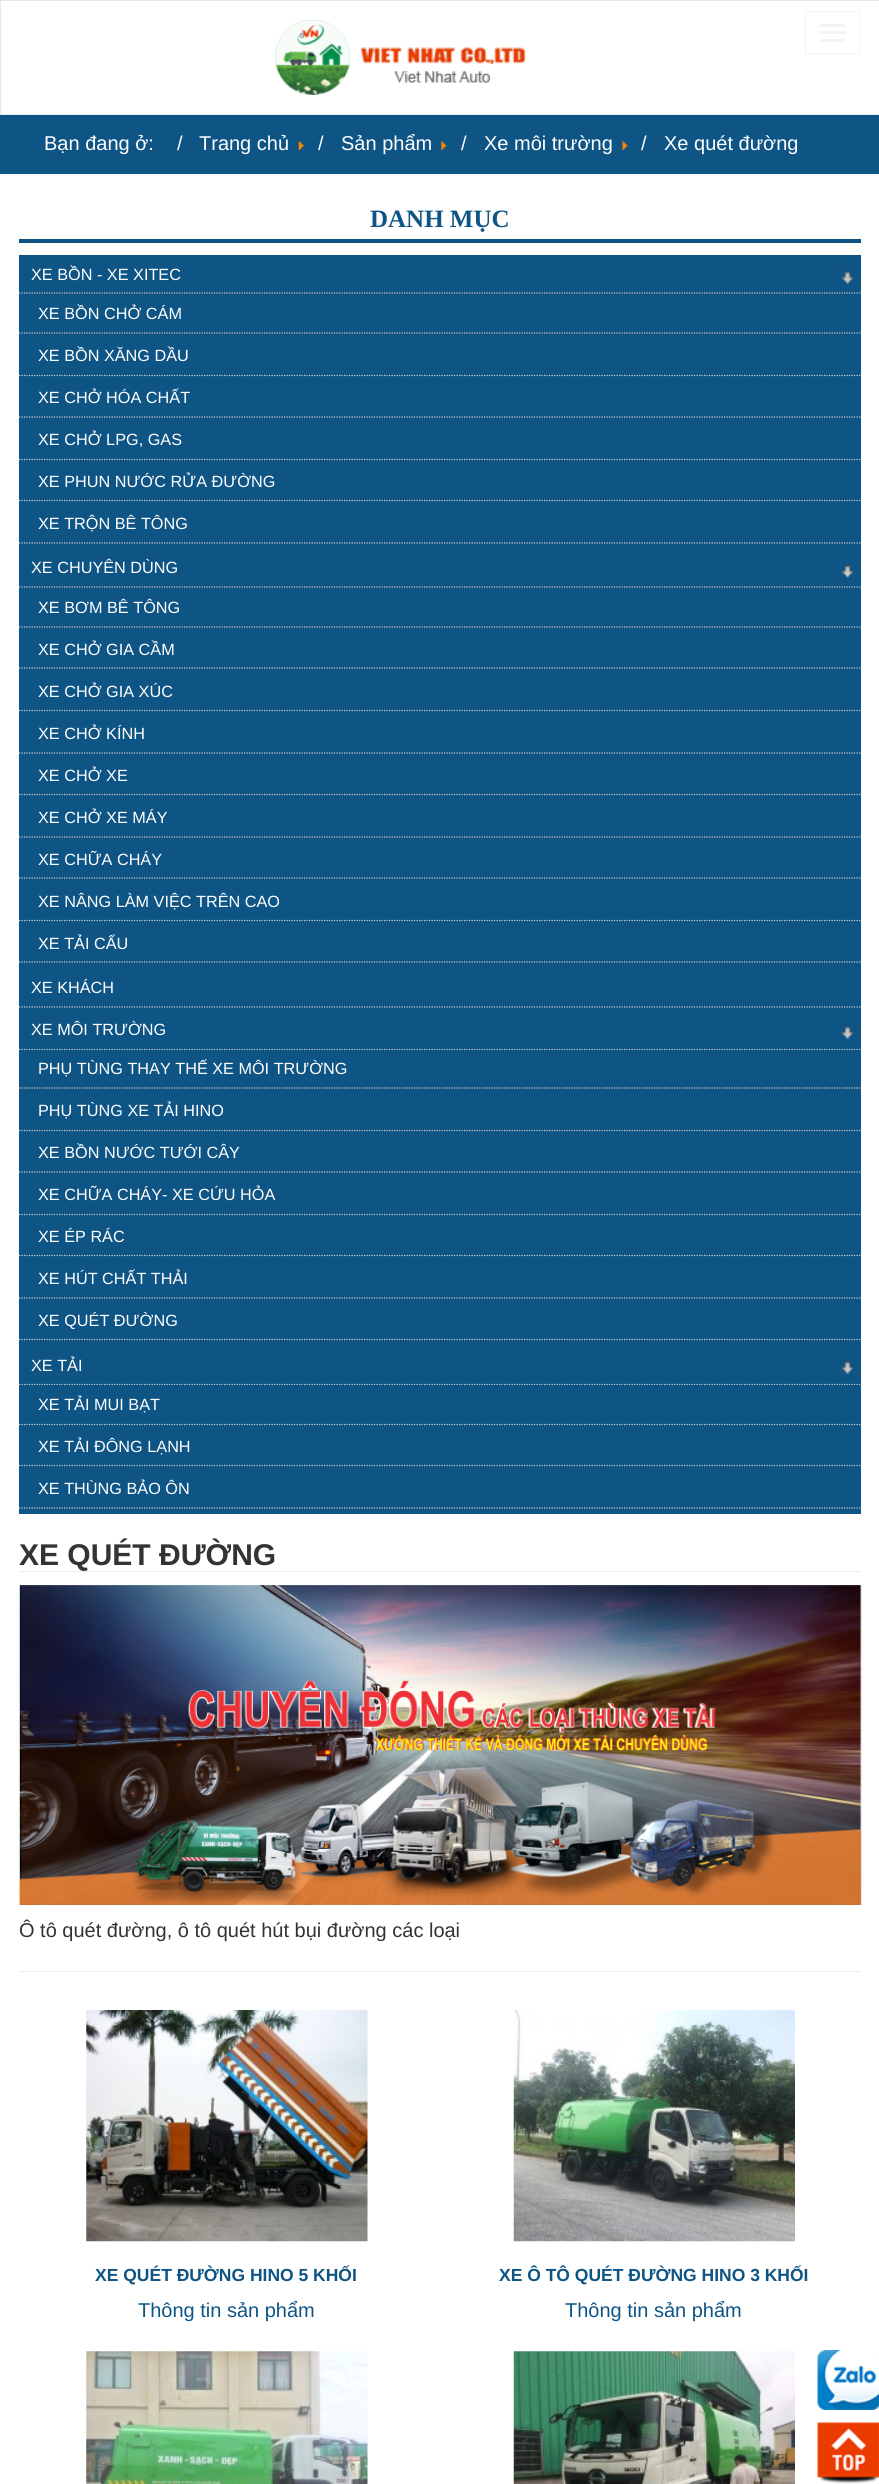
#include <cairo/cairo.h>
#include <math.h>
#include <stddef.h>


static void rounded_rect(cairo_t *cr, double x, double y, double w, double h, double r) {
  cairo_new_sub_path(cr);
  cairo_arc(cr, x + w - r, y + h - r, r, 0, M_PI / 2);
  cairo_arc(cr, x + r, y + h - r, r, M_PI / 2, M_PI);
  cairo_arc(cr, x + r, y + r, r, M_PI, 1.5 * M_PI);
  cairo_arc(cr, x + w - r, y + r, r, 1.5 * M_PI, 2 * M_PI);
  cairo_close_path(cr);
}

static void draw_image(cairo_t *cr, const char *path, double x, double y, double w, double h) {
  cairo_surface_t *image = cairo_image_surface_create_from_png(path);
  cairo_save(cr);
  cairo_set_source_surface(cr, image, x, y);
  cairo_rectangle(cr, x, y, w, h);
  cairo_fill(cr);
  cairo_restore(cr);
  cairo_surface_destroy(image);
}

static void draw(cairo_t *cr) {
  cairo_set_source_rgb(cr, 1, 1, 1);
  cairo_paint(cr);
  cairo_rectangle(cr, 0.5, 0.5, 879, 114);
  cairo_set_source_rgb(cr, 231 / 255.0, 231 / 255.0, 231 / 255.0);
  cairo_set_line_width(cr, 1);
  cairo_stroke(cr);
  draw_image(cr, "images/1.png", 275, 20, 251, 75);
  cairo_rectangle(cr, 805.5, 11.5, 54, 42);
  cairo_set_source_rgb(cr, 241 / 255.0, 245 / 255.0, 248 / 255.0);
  cairo_stroke(cr);
  rounded_rect(cr, 819, 24, 27, 3, 1.5);
  cairo_fill(cr);
  rounded_rect(cr, 819, 31, 27, 3, 1.5);
  cairo_fill(cr);
  rounded_rect(cr, 819, 39, 27, 3, 1.5);
  cairo_fill(cr);
  cairo_set_source_rgb(cr, 14 / 255.0, 84 / 255.0, 132 / 255.0);
  cairo_rectangle(cr, 0, 115, 879, 59);
  cairo_fill(cr);
  draw_image(cr, "images/2.png", 298, 141, 6, 9);
  draw_image(cr, "images/3.png", 441, 141, 6, 9);
  draw_image(cr, "images/4.png", 622, 141, 6, 9);
  cairo_rectangle(cr, 19, 239, 842, 4);
  cairo_fill(cr);
  cairo_rectangle(cr, 19, 255, 842, 1259);
  cairo_fill(cr);
  cairo_new_path(cr);
  cairo_move_to(cr, 19, 293);
  cairo_line_to(cr, 861, 293);
  cairo_set_source_rgb(cr, 204 / 255.0, 204 / 255.0, 204 / 255.0);
  cairo_set_line_width(cr, 1.2);
  cairo_set_dash(cr, (double[]){1.25, 1.25}, 2, 0);
  cairo_stroke(cr);
  draw_image(cr, "images/5.png", 841, 271, 13, 13);
  cairo_new_path(cr);
  cairo_move_to(cr, 19, 333);
  cairo_line_to(cr, 861, 333);
  cairo_stroke(cr);
  cairo_new_path(cr);
  cairo_move_to(cr, 19, 375.5);
  cairo_line_to(cr, 861, 375.5);
  cairo_stroke(cr);
  cairo_new_path(cr);
  cairo_move_to(cr, 19, 417);
  cairo_line_to(cr, 861, 417);
  cairo_stroke(cr);
  cairo_new_path(cr);
  cairo_move_to(cr, 19, 459.5);
  cairo_line_to(cr, 861, 459.5);
  cairo_stroke(cr);
  cairo_new_path(cr);
  cairo_move_to(cr, 19, 500.5);
  cairo_line_to(cr, 861, 500.5);
  cairo_stroke(cr);
  cairo_new_path(cr);
  cairo_move_to(cr, 19, 543);
  cairo_line_to(cr, 861, 543);
  cairo_stroke(cr);
  cairo_new_path(cr);
  cairo_move_to(cr, 19, 587);
  cairo_line_to(cr, 861, 587);
  cairo_stroke(cr);
  draw_image(cr, "images/6.png", 841, 565, 13, 13);
  cairo_new_path(cr);
  cairo_move_to(cr, 19, 627);
  cairo_line_to(cr, 861, 627);
  cairo_stroke(cr);
  cairo_new_path(cr);
  cairo_move_to(cr, 19, 668);
  cairo_line_to(cr, 861, 668);
  cairo_stroke(cr);
  cairo_new_path(cr);
  cairo_move_to(cr, 19, 710.5);
  cairo_line_to(cr, 861, 710.5);
  cairo_stroke(cr);
  cairo_new_path(cr);
  cairo_move_to(cr, 19, 753);
  cairo_line_to(cr, 861, 753);
  cairo_stroke(cr);
  cairo_new_path(cr);
  cairo_move_to(cr, 19, 794.5);
  cairo_line_to(cr, 861, 794.5);
  cairo_stroke(cr);
  cairo_new_path(cr);
  cairo_move_to(cr, 19, 837);
  cairo_line_to(cr, 861, 837);
  cairo_stroke(cr);
  cairo_new_path(cr);
  cairo_move_to(cr, 19, 878);
  cairo_line_to(cr, 861, 878);
  cairo_stroke(cr);
  cairo_new_path(cr);
  cairo_move_to(cr, 19, 920.5);
  cairo_line_to(cr, 861, 920.5);
  cairo_stroke(cr);
  cairo_new_path(cr);
  cairo_move_to(cr, 19, 962);
  cairo_line_to(cr, 861, 962);
  cairo_stroke(cr);
  cairo_new_path(cr);
  cairo_move_to(cr, 19, 1007);
  cairo_line_to(cr, 861, 1007);
  cairo_stroke(cr);
  cairo_new_path(cr);
  cairo_move_to(cr, 19, 1049.5);
  cairo_line_to(cr, 861, 1049.5);
  cairo_stroke(cr);
  draw_image(cr, "images/5.png", 841, 1026, 13, 13);
  cairo_set_source_rgb(cr, 14 / 255.0, 84 / 255.0, 132 / 255.0);
  cairo_rectangle(cr, 19, 1050, 842, 1);
  cairo_fill(cr);
  cairo_new_path(cr);
  cairo_move_to(cr, 19, 1088);
  cairo_line_to(cr, 861, 1088);
  cairo_set_source_rgb(cr, 204 / 255.0, 204 / 255.0, 204 / 255.0);
  cairo_stroke(cr);
  cairo_new_path(cr);
  cairo_move_to(cr, 19, 1130.5);
  cairo_line_to(cr, 861, 1130.5);
  cairo_stroke(cr);
  cairo_new_path(cr);
  cairo_move_to(cr, 19, 1172);
  cairo_line_to(cr, 861, 1172);
  cairo_stroke(cr);
  cairo_new_path(cr);
  cairo_move_to(cr, 19, 1214.5);
  cairo_line_to(cr, 861, 1214.5);
  cairo_stroke(cr);
  cairo_new_path(cr);
  cairo_move_to(cr, 19, 1255.5);
  cairo_line_to(cr, 861, 1255.5);
  cairo_stroke(cr);
  cairo_new_path(cr);
  cairo_move_to(cr, 19, 1298);
  cairo_line_to(cr, 861, 1298);
  cairo_stroke(cr);
  cairo_new_path(cr);
  cairo_move_to(cr, 19, 1339.5);
  cairo_line_to(cr, 861, 1339.5);
  cairo_stroke(cr);
  cairo_new_path(cr);
  cairo_move_to(cr, 19, 1384.5);
  cairo_line_to(cr, 861, 1384.5);
  cairo_stroke(cr);
  draw_image(cr, "images/5.png", 841, 1361, 13, 13);
  cairo_set_source_rgb(cr, 14 / 255.0, 84 / 255.0, 132 / 255.0);
  cairo_rectangle(cr, 19, 1385, 842, 1);
  cairo_fill(cr);
  cairo_new_path(cr);
  cairo_move_to(cr, 19, 1424.5);
  cairo_line_to(cr, 861, 1424.5);
  cairo_set_source_rgb(cr, 204 / 255.0, 204 / 255.0, 204 / 255.0);
  cairo_stroke(cr);
  cairo_new_path(cr);
  cairo_move_to(cr, 19, 1465.5);
  cairo_line_to(cr, 861, 1465.5);
  cairo_stroke(cr);
  cairo_new_path(cr);
  cairo_move_to(cr, 19, 1508);
  cairo_line_to(cr, 861, 1508);
  cairo_stroke(cr);
  cairo_set_source_rgb(cr, 238 / 255.0, 238 / 255.0, 238 / 255.0);
  cairo_rectangle(cr, 19, 1571, 842, 1);
  cairo_fill(cr);
  draw_image(cr, "images/7.png", 18, 1585, 844, 320);
  cairo_rectangle(cr, 19, 1971, 842, 1);
  cairo_fill(cr);
  draw_image(cr, "images/8.png", 86, 2010, 282, 232);
  draw_image(cr, "images/9.png", 513, 2010, 282, 232);
  draw_image(cr, "images/10.png", 86, 2351, 282, 133);
  draw_image(cr, "images/11.png", 513, 2351, 282, 133);
  draw_image(cr, "images/12.png", 817, 2422, 62, 62);
  draw_image(cr, "images/13.png", 817, 2350, 62, 60);
  cairo_select_font_face(cr, "Liberation Sans", CAIRO_FONT_SLANT_NORMAL, CAIRO_FONT_WEIGHT_NORMAL);
  cairo_set_font_size(cr, 20);
  cairo_set_source_rgb(cr, 1, 1, 1);
  cairo_move_to(cr, 44, 150);
  cairo_show_text(cr, "Bạn đang ở:");
  cairo_move_to(cr, 177, 150);
  cairo_show_text(cr, "/");
  cairo_move_to(cr, 199, 150);
  cairo_show_text(cr, "Trang chủ");
  cairo_move_to(cr, 318, 150);
  cairo_show_text(cr, "/");
  cairo_move_to(cr, 341, 150);
  cairo_show_text(cr, "Sản phẩm");
  cairo_move_to(cr, 461, 150);
  cairo_show_text(cr, "/");
  cairo_move_to(cr, 484, 150);
  cairo_show_text(cr, "Xe môi trường");
  cairo_move_to(cr, 641, 150);
  cairo_show_text(cr, "/");
  cairo_move_to(cr, 664, 150);
  cairo_show_text(cr, "Xe quét đường");
  cairo_select_font_face(cr, "Liberation Serif", CAIRO_FONT_SLANT_NORMAL, CAIRO_FONT_WEIGHT_BOLD);
  cairo_set_font_size(cr, 25);
  cairo_set_source_rgb(cr, 14 / 255.0, 84 / 255.0, 132 / 255.0);
  cairo_move_to(cr, 370, 227);
  cairo_show_text(cr, "DANH MỤC");
  cairo_select_font_face(cr, "Liberation Sans", CAIRO_FONT_SLANT_NORMAL, CAIRO_FONT_WEIGHT_NORMAL);
  cairo_set_font_size(cr, 16.25);
  cairo_set_source_rgb(cr, 1, 1, 1);
  cairo_move_to(cr, 31, 280);
  cairo_show_text(cr, "XE BỒN - XE XITEC");
  cairo_move_to(cr, 38, 319);
  cairo_show_text(cr, "XE BỒN CHỞ CÁM");
  cairo_move_to(cr, 38, 361);
  cairo_show_text(cr, "XE BỒN XĂNG DẦU");
  cairo_move_to(cr, 38, 403);
  cairo_show_text(cr, "XE CHỞ HÓA CHẤT");
  cairo_move_to(cr, 38, 445);
  cairo_show_text(cr, "XE CHỞ LPG, GAS");
  cairo_move_to(cr, 38, 487);
  cairo_show_text(cr, "XE PHUN NƯỚC RỬA ĐƯỜNG");
  cairo_move_to(cr, 38, 529);
  cairo_show_text(cr, "XE TRỘN BÊ TÔNG");
  cairo_move_to(cr, 31, 573);
  cairo_show_text(cr, "XE CHUYÊN DÙNG");
  cairo_move_to(cr, 38, 613);
  cairo_show_text(cr, "XE BƠM BÊ TÔNG");
  cairo_move_to(cr, 38, 655);
  cairo_show_text(cr, "XE CHỞ GIA CẦM");
  cairo_move_to(cr, 38, 697);
  cairo_show_text(cr, "XE CHỞ GIA XÚC");
  cairo_move_to(cr, 38, 739);
  cairo_show_text(cr, "XE CHỞ KÍNH");
  cairo_move_to(cr, 38, 781);
  cairo_show_text(cr, "XE CHỞ XE");
  cairo_move_to(cr, 38, 823);
  cairo_show_text(cr, "XE CHỞ XE MÁY");
  cairo_move_to(cr, 38, 865);
  cairo_show_text(cr, "XE CHỮA CHÁY");
  cairo_move_to(cr, 38, 907);
  cairo_show_text(cr, "XE NÂNG LÀM VIỆC TRÊN CAO");
  cairo_move_to(cr, 38, 949);
  cairo_show_text(cr, "XE TẢI CẨU");
  cairo_move_to(cr, 31, 993);
  cairo_show_text(cr, "XE KHÁCH");
  cairo_move_to(cr, 31, 1035);
  cairo_show_text(cr, "XE MÔI TRƯỜNG");
  cairo_move_to(cr, 38, 1074);
  cairo_show_text(cr, "PHỤ TÙNG THAY THẾ XE MÔI TRƯỜNG");
  cairo_move_to(cr, 38, 1116);
  cairo_show_text(cr, "PHỤ TÙNG XE TẢI HINO");
  cairo_move_to(cr, 38, 1158);
  cairo_show_text(cr, "XE BỒN NƯỚC TƯỚI CÂY");
  cairo_move_to(cr, 38, 1200);
  cairo_show_text(cr, "XE CHỮA CHÁY- XE CỨU HỎA");
  cairo_move_to(cr, 38, 1242);
  cairo_show_text(cr, "XE ÉP RÁC");
  cairo_move_to(cr, 38, 1284);
  cairo_show_text(cr, "XE HÚT CHẤT THẢI");
  cairo_move_to(cr, 38, 1326);
  cairo_show_text(cr, "XE QUÉT ĐƯỜNG");
  cairo_move_to(cr, 31, 1371);
  cairo_show_text(cr, "XE TẢI");
  cairo_move_to(cr, 38, 1410);
  cairo_show_text(cr, "XE TẢI MUI BẠT");
  cairo_move_to(cr, 38, 1452);
  cairo_show_text(cr, "XE TẢI ĐÔNG LẠNH");
  cairo_move_to(cr, 38, 1494);
  cairo_show_text(cr, "XE THÙNG BẢO ÔN");
  cairo_select_font_face(cr, "Liberation Sans", CAIRO_FONT_SLANT_NORMAL, CAIRO_FONT_WEIGHT_BOLD);
  cairo_set_font_size(cr, 30);
  cairo_set_source_rgb(cr, 51 / 255.0, 51 / 255.0, 51 / 255.0);
  cairo_move_to(cr, 19, 1565);
  cairo_show_text(cr, "XE QUÉT ĐƯỜNG");
  cairo_select_font_face(cr, "Liberation Sans", CAIRO_FONT_SLANT_NORMAL, CAIRO_FONT_WEIGHT_NORMAL);
  cairo_set_font_size(cr, 20);
  cairo_move_to(cr, 19, 1937);
  cairo_show_text(cr, "Ô tô quét đường, ô tô quét hút bụi đường các loại");
  cairo_select_font_face(cr, "Liberation Sans", CAIRO_FONT_SLANT_NORMAL, CAIRO_FONT_WEIGHT_BOLD);
  cairo_set_font_size(cr, 17.5);
  cairo_set_source_rgb(cr, 14 / 255.0, 84 / 255.0, 132 / 255.0);
  cairo_move_to(cr, 95, 2281);
  cairo_show_text(cr, "XE QUÉT ĐƯỜNG HINO 5 KHỐI");
  cairo_select_font_face(cr, "Liberation Sans", CAIRO_FONT_SLANT_NORMAL, CAIRO_FONT_WEIGHT_NORMAL);
  cairo_set_font_size(cr, 20);
  cairo_move_to(cr, 138, 2317);
  cairo_show_text(cr, "Thông tin sản phẩm");
  cairo_select_font_face(cr, "Liberation Sans", CAIRO_FONT_SLANT_NORMAL, CAIRO_FONT_WEIGHT_BOLD);
  cairo_set_font_size(cr, 17.5);
  cairo_move_to(cr, 499, 2281);
  cairo_show_text(cr, "XE Ô TÔ QUÉT ĐƯỜNG HINO 3 KHỐI");
  cairo_select_font_face(cr, "Liberation Sans", CAIRO_FONT_SLANT_NORMAL, CAIRO_FONT_WEIGHT_NORMAL);
  cairo_set_font_size(cr, 20);
  cairo_move_to(cr, 565, 2317);
  cairo_show_text(cr, "Thông tin sản phẩm");
}

int main(void) {
  cairo_surface_t *surface = cairo_image_surface_create(CAIRO_FORMAT_RGB24, 879, 2484);
  cairo_t *cr = cairo_create(surface);
  cairo_font_options_t *options = cairo_font_options_create();
  cairo_font_options_set_hint_metrics(options, CAIRO_HINT_METRICS_OFF);
  cairo_font_options_set_hint_style(options, CAIRO_HINT_STYLE_NONE);
  cairo_set_font_options(cr, options);
  cairo_set_miter_limit(cr, 4);
  draw(cr);
  cairo_surface_write_to_png(surface, "out.png");
  cairo_font_options_destroy(options);
  cairo_destroy(cr);
  cairo_surface_destroy(surface);
  return 0;
}
